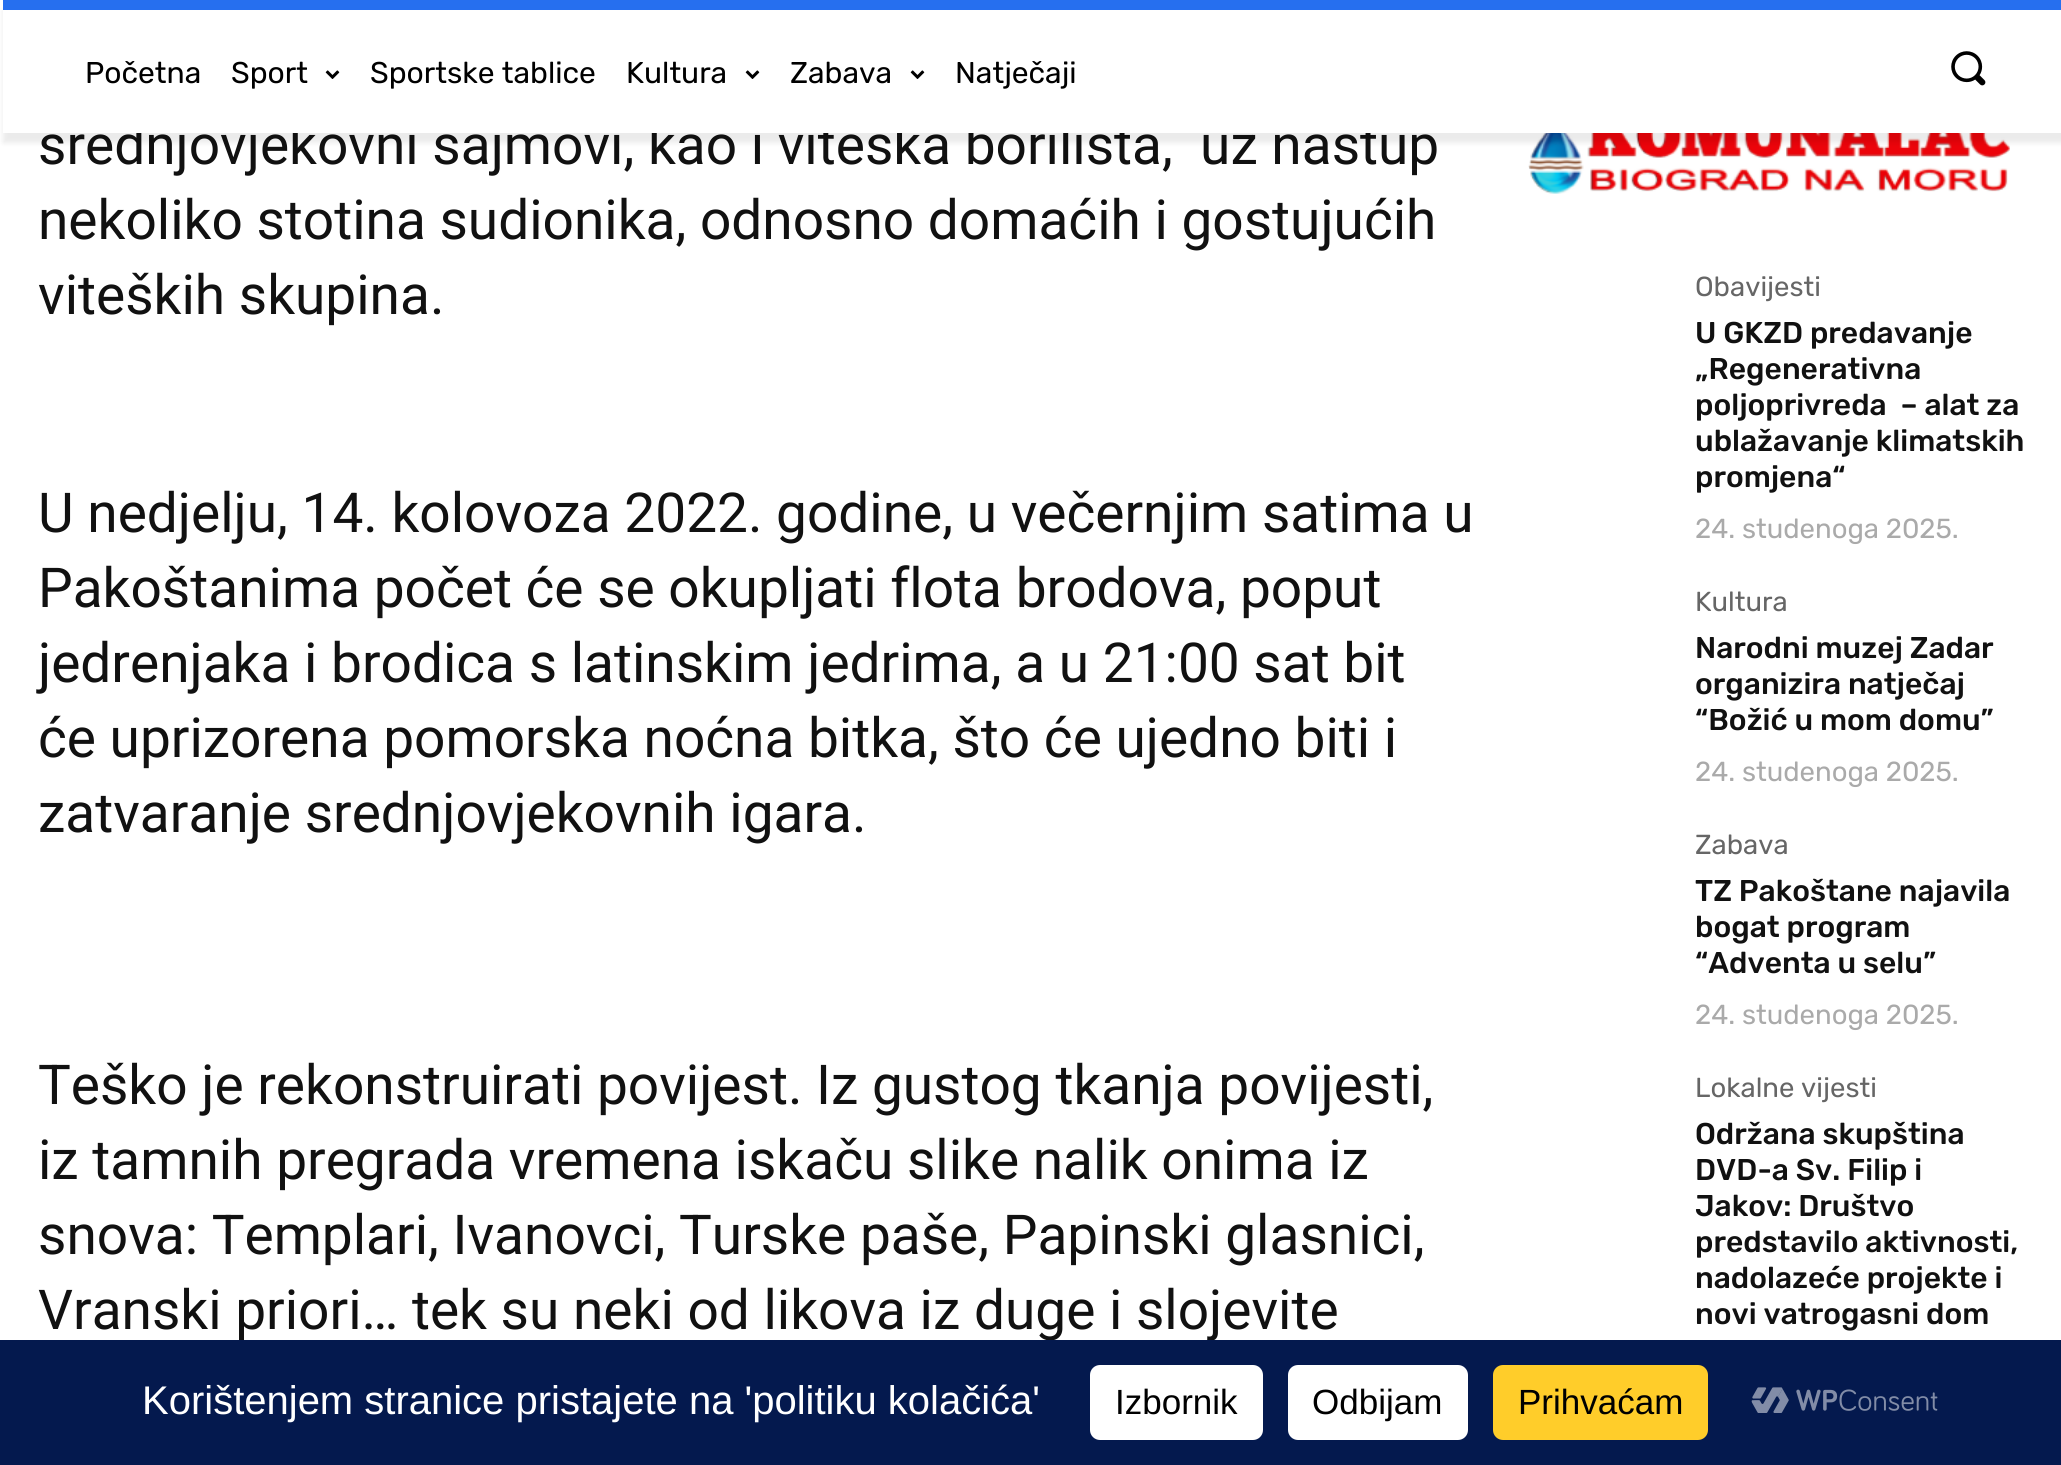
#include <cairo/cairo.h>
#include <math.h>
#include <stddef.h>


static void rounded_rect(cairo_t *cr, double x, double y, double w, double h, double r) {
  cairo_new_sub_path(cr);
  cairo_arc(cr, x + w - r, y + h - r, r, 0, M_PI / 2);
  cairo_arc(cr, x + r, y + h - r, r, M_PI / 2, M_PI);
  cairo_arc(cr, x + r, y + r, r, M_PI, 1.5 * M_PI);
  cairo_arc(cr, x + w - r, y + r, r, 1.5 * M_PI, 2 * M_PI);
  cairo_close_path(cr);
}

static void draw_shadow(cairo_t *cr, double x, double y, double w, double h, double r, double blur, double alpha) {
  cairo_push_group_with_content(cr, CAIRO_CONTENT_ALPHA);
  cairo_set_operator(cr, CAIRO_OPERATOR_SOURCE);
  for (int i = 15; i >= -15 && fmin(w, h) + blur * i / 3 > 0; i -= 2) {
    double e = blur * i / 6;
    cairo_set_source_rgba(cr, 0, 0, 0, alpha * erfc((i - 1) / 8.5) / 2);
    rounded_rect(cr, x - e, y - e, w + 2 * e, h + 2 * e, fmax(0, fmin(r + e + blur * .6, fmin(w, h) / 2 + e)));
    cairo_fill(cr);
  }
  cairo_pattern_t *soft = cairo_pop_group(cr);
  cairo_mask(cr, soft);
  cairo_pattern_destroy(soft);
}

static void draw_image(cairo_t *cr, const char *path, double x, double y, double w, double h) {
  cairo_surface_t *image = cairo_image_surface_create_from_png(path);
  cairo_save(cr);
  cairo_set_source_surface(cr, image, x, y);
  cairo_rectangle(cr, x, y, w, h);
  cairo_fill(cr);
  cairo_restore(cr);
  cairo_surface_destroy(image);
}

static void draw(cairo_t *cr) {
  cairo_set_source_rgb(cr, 1, 1, 1);
  cairo_paint(cr);
  cairo_set_source_rgb(cr, 38 / 255.0, 111 / 255.0, 239 / 255.0);
  cairo_rectangle(cr, 3, 0, 2058, 10);
  cairo_fill(cr);
  draw_image(cr, "images/3.png", 1528, 133, 482, 61);
  cairo_select_font_face(cr, "Roboto", CAIRO_FONT_SLANT_NORMAL, CAIRO_FONT_WEIGHT_NORMAL);
  cairo_set_font_size(cr, 55);
  cairo_set_source_rgb(cr, 17 / 255.0, 17 / 255.0, 17 / 255.0);
  cairo_move_to(cr, 38, 164);
  cairo_show_text(cr, "srednjovjekovni sajmovi, kao i viteška borilišta,  uz nastup");
  cairo_set_source_rgb(cr, 1, 1, 1);
  cairo_rectangle(cr, 135, 122, 1236, 11);
  cairo_fill(cr);
  cairo_save(cr);
  cairo_set_fill_rule(cr, CAIRO_FILL_RULE_EVEN_ODD);
  cairo_new_path(cr);
  cairo_move_to(cr, 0, 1);
  cairo_line_to(cr, 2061, 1);
  cairo_line_to(cr, 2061, 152);
  cairo_line_to(cr, 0, 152);
  cairo_close_path(cr);
  cairo_move_to(cr, 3, 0);
  cairo_line_to(cr, 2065, 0);
  cairo_line_to(cr, 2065, 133);
  cairo_line_to(cr, 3, 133);
  cairo_close_path(cr);
  cairo_clip(cr);
  cairo_set_source_rgb(cr, 0, 0, 0);
  draw_shadow(cr, 3, 10, 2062, 133, 0, 2.5, 0.08);
  cairo_restore(cr);
  draw_image(cr, "images/2.png", 1951, 51, 35, 35);
  cairo_select_font_face(cr, "Rubik", CAIRO_FONT_SLANT_NORMAL, CAIRO_FONT_WEIGHT_NORMAL);
  cairo_set_font_size(cr, 30);
  cairo_set_source_rgb(cr, 0, 0, 0);
  cairo_move_to(cr, 955, 83);
  cairo_show_text(cr, "Natječaji");
  draw_image(cr, "images/1.png", 910, 70, 15, 9);
  cairo_move_to(cr, 790, 83);
  cairo_show_text(cr, "Zabava");
  draw_image(cr, "images/1.png", 745, 70, 15, 9);
  cairo_move_to(cr, 626, 83);
  cairo_show_text(cr, "Kultura");
  cairo_move_to(cr, 370, 83);
  cairo_show_text(cr, "Sportske tablice");
  draw_image(cr, "images/1.png", 325, 70, 15, 9);
  cairo_move_to(cr, 231, 83);
  cairo_show_text(cr, "Sport");
  cairo_move_to(cr, 85, 83);
  cairo_show_text(cr, "Početna");
  cairo_select_font_face(cr, "Roboto", CAIRO_FONT_SLANT_NORMAL, CAIRO_FONT_WEIGHT_NORMAL);
  cairo_set_font_size(cr, 55);
  cairo_set_source_rgb(cr, 17 / 255.0, 17 / 255.0, 17 / 255.0);
  cairo_move_to(cr, 38, 239);
  cairo_show_text(cr, "nekoliko stotina sudionika, odnosno domaćih i gostujućih");
  cairo_move_to(cr, 38, 314);
  cairo_show_text(cr, "viteških skupina.");
  cairo_move_to(cr, 38, 532);
  cairo_show_text(cr, "U nedjelju, 14. kolovoza 2022. godine, u večernjim satima u");
  cairo_move_to(cr, 38, 607);
  cairo_show_text(cr, "Pakoštanima počet će se okupljati flota brodova, poput");
  cairo_move_to(cr, 38, 682);
  cairo_show_text(cr, "jedrenjaka i brodica s latinskim jedrima, a u 21:00 sat bit");
  cairo_move_to(cr, 38, 757);
  cairo_show_text(cr, "će uprizorena pomorska noćna bitka, što će ujedno biti i");
  cairo_move_to(cr, 38, 832);
  cairo_show_text(cr, "zatvaranje srednjovjekovnih igara.");
  cairo_move_to(cr, 38, 1104);
  cairo_show_text(cr, "Teško je rekonstruirati povijest. Iz gustog tkanja povijesti,");
  cairo_move_to(cr, 38, 1179);
  cairo_show_text(cr, "iz tamnih pregrada vremena iskaču slike nalik onima iz");
  cairo_move_to(cr, 38, 1254);
  cairo_show_text(cr, "snova: Templari, Ivanovci, Turske paše, Papinski glasnici,");
  cairo_move_to(cr, 38, 1329);
  cairo_show_text(cr, "Vranski priori… tek su neki od likova iz duge i slojevite");
  cairo_select_font_face(cr, "Rubik", CAIRO_FONT_SLANT_NORMAL, CAIRO_FONT_WEIGHT_NORMAL);
  cairo_set_font_size(cr, 27.5);
  cairo_set_source_rgb(cr, 102 / 255.0, 102 / 255.0, 102 / 255.0);
  cairo_move_to(cr, 1695, 296);
  cairo_show_text(cr, "Obavijesti");
  cairo_select_font_face(cr, "Rubik Medium", CAIRO_FONT_SLANT_NORMAL, CAIRO_FONT_WEIGHT_NORMAL);
  cairo_set_font_size(cr, 30);
  cairo_set_source_rgb(cr, 17 / 255.0, 17 / 255.0, 17 / 255.0);
  cairo_move_to(cr, 1695, 343);
  cairo_show_text(cr, "U GKZD predavanje");
  cairo_move_to(cr, 1695, 379);
  cairo_show_text(cr, "„Regenerativna");
  cairo_move_to(cr, 1695, 415);
  cairo_show_text(cr, "poljoprivreda  – alat za");
  cairo_move_to(cr, 1695, 451);
  cairo_show_text(cr, "ublažavanje klimatskih");
  cairo_move_to(cr, 1695, 487);
  cairo_show_text(cr, "promjena“");
  cairo_select_font_face(cr, "Rubik", CAIRO_FONT_SLANT_NORMAL, CAIRO_FONT_WEIGHT_NORMAL);
  cairo_set_font_size(cr, 27.5);
  cairo_set_source_rgb(cr, 170 / 255.0, 170 / 255.0, 170 / 255.0);
  cairo_move_to(cr, 1695, 538);
  cairo_show_text(cr, "24. studenoga 2025.");
  cairo_set_source_rgb(cr, 102 / 255.0, 102 / 255.0, 102 / 255.0);
  cairo_move_to(cr, 1695, 611);
  cairo_show_text(cr, "Kultura");
  cairo_select_font_face(cr, "Rubik Medium", CAIRO_FONT_SLANT_NORMAL, CAIRO_FONT_WEIGHT_NORMAL);
  cairo_set_font_size(cr, 30);
  cairo_set_source_rgb(cr, 17 / 255.0, 17 / 255.0, 17 / 255.0);
  cairo_move_to(cr, 1695, 658);
  cairo_show_text(cr, "Narodni muzej Zadar");
  cairo_move_to(cr, 1695, 694);
  cairo_show_text(cr, "organizira natječaj");
  cairo_move_to(cr, 1695, 730);
  cairo_show_text(cr, "“Božić u mom domu”");
  cairo_select_font_face(cr, "Rubik", CAIRO_FONT_SLANT_NORMAL, CAIRO_FONT_WEIGHT_NORMAL);
  cairo_set_font_size(cr, 27.5);
  cairo_set_source_rgb(cr, 170 / 255.0, 170 / 255.0, 170 / 255.0);
  cairo_move_to(cr, 1695, 781);
  cairo_show_text(cr, "24. studenoga 2025.");
  cairo_set_source_rgb(cr, 102 / 255.0, 102 / 255.0, 102 / 255.0);
  cairo_move_to(cr, 1695, 854);
  cairo_show_text(cr, "Zabava");
  cairo_select_font_face(cr, "Rubik Medium", CAIRO_FONT_SLANT_NORMAL, CAIRO_FONT_WEIGHT_NORMAL);
  cairo_set_font_size(cr, 30);
  cairo_set_source_rgb(cr, 17 / 255.0, 17 / 255.0, 17 / 255.0);
  cairo_move_to(cr, 1695, 901);
  cairo_show_text(cr, "TZ Pakoštane najavila");
  cairo_move_to(cr, 1695, 937);
  cairo_show_text(cr, "bogat program");
  cairo_move_to(cr, 1695, 973);
  cairo_show_text(cr, "“Adventa u selu”");
  cairo_select_font_face(cr, "Rubik", CAIRO_FONT_SLANT_NORMAL, CAIRO_FONT_WEIGHT_NORMAL);
  cairo_set_font_size(cr, 27.5);
  cairo_set_source_rgb(cr, 170 / 255.0, 170 / 255.0, 170 / 255.0);
  cairo_move_to(cr, 1695, 1024);
  cairo_show_text(cr, "24. studenoga 2025.");
  cairo_set_source_rgb(cr, 102 / 255.0, 102 / 255.0, 102 / 255.0);
  cairo_move_to(cr, 1695, 1097);
  cairo_show_text(cr, "Lokalne vijesti");
  cairo_select_font_face(cr, "Rubik Medium", CAIRO_FONT_SLANT_NORMAL, CAIRO_FONT_WEIGHT_NORMAL);
  cairo_set_font_size(cr, 30);
  cairo_set_source_rgb(cr, 17 / 255.0, 17 / 255.0, 17 / 255.0);
  cairo_move_to(cr, 1695, 1144);
  cairo_show_text(cr, "Održana skupština");
  cairo_move_to(cr, 1695, 1180);
  cairo_show_text(cr, "DVD-a Sv. Filip i");
  cairo_move_to(cr, 1695, 1216);
  cairo_show_text(cr, "Jakov: Društvo");
  cairo_move_to(cr, 1695, 1252);
  cairo_show_text(cr, "predstavilo aktivnosti,");
  cairo_move_to(cr, 1695, 1288);
  cairo_show_text(cr, "nadolazeće projekte i");
  cairo_move_to(cr, 1695, 1324);
  cairo_show_text(cr, "novi vatrogasni dom");
  cairo_set_source_rgb(cr, 4 / 255.0, 25 / 255.0, 78 / 255.0);
  cairo_rectangle(cr, 0, 1340, 2061, 125);
  cairo_fill(cr);
  cairo_select_font_face(cr, "Liberation Sans", CAIRO_FONT_SLANT_NORMAL, CAIRO_FONT_WEIGHT_NORMAL);
  cairo_set_font_size(cr, 40);
  cairo_set_source_rgb(cr, 1, 1, 1);
  cairo_move_to(cr, 142, 1414);
  cairo_show_text(cr, "Korištenjem stranice pristajete na 'politiku kolačića'");
  rounded_rect(cr, 1090, 1365, 173, 75, 10);
  cairo_fill(cr);
  cairo_set_font_size(cr, 35);
  cairo_set_source_rgb(cr, 0, 0, 0);
  cairo_move_to(cr, 1115, 1414);
  cairo_show_text(cr, "Izbornik");
  cairo_set_source_rgb(cr, 1, 1, 1);
  rounded_rect(cr, 1288, 1365, 180, 75, 10);
  cairo_fill(cr);
  cairo_set_source_rgb(cr, 0, 0, 0);
  cairo_move_to(cr, 1312, 1414);
  cairo_show_text(cr, "Odbijam");
  cairo_set_source_rgb(cr, 1, 205 / 255.0, 42 / 255.0);
  rounded_rect(cr, 1493, 1365, 215, 75, 10);
  cairo_fill(cr);
  cairo_set_source_rgb(cr, 0, 0, 0);
  cairo_move_to(cr, 1518, 1414);
  cairo_show_text(cr, "Prihvaćam");
  draw_image(cr, "images/4.png", 1751, 1387, 187, 26);
}

int main(void) {
  cairo_surface_t *surface = cairo_image_surface_create(CAIRO_FORMAT_RGB24, 2061, 1465);
  cairo_t *cr = cairo_create(surface);
  cairo_font_options_t *options = cairo_font_options_create();
  cairo_font_options_set_hint_metrics(options, CAIRO_HINT_METRICS_OFF);
  cairo_font_options_set_hint_style(options, CAIRO_HINT_STYLE_NONE);
  cairo_set_font_options(cr, options);
  cairo_set_miter_limit(cr, 4);
  draw(cr);
  cairo_surface_write_to_png(surface, "out.png");
  cairo_font_options_destroy(options);
  cairo_destroy(cr);
  cairo_surface_destroy(surface);
  return 0;
}
